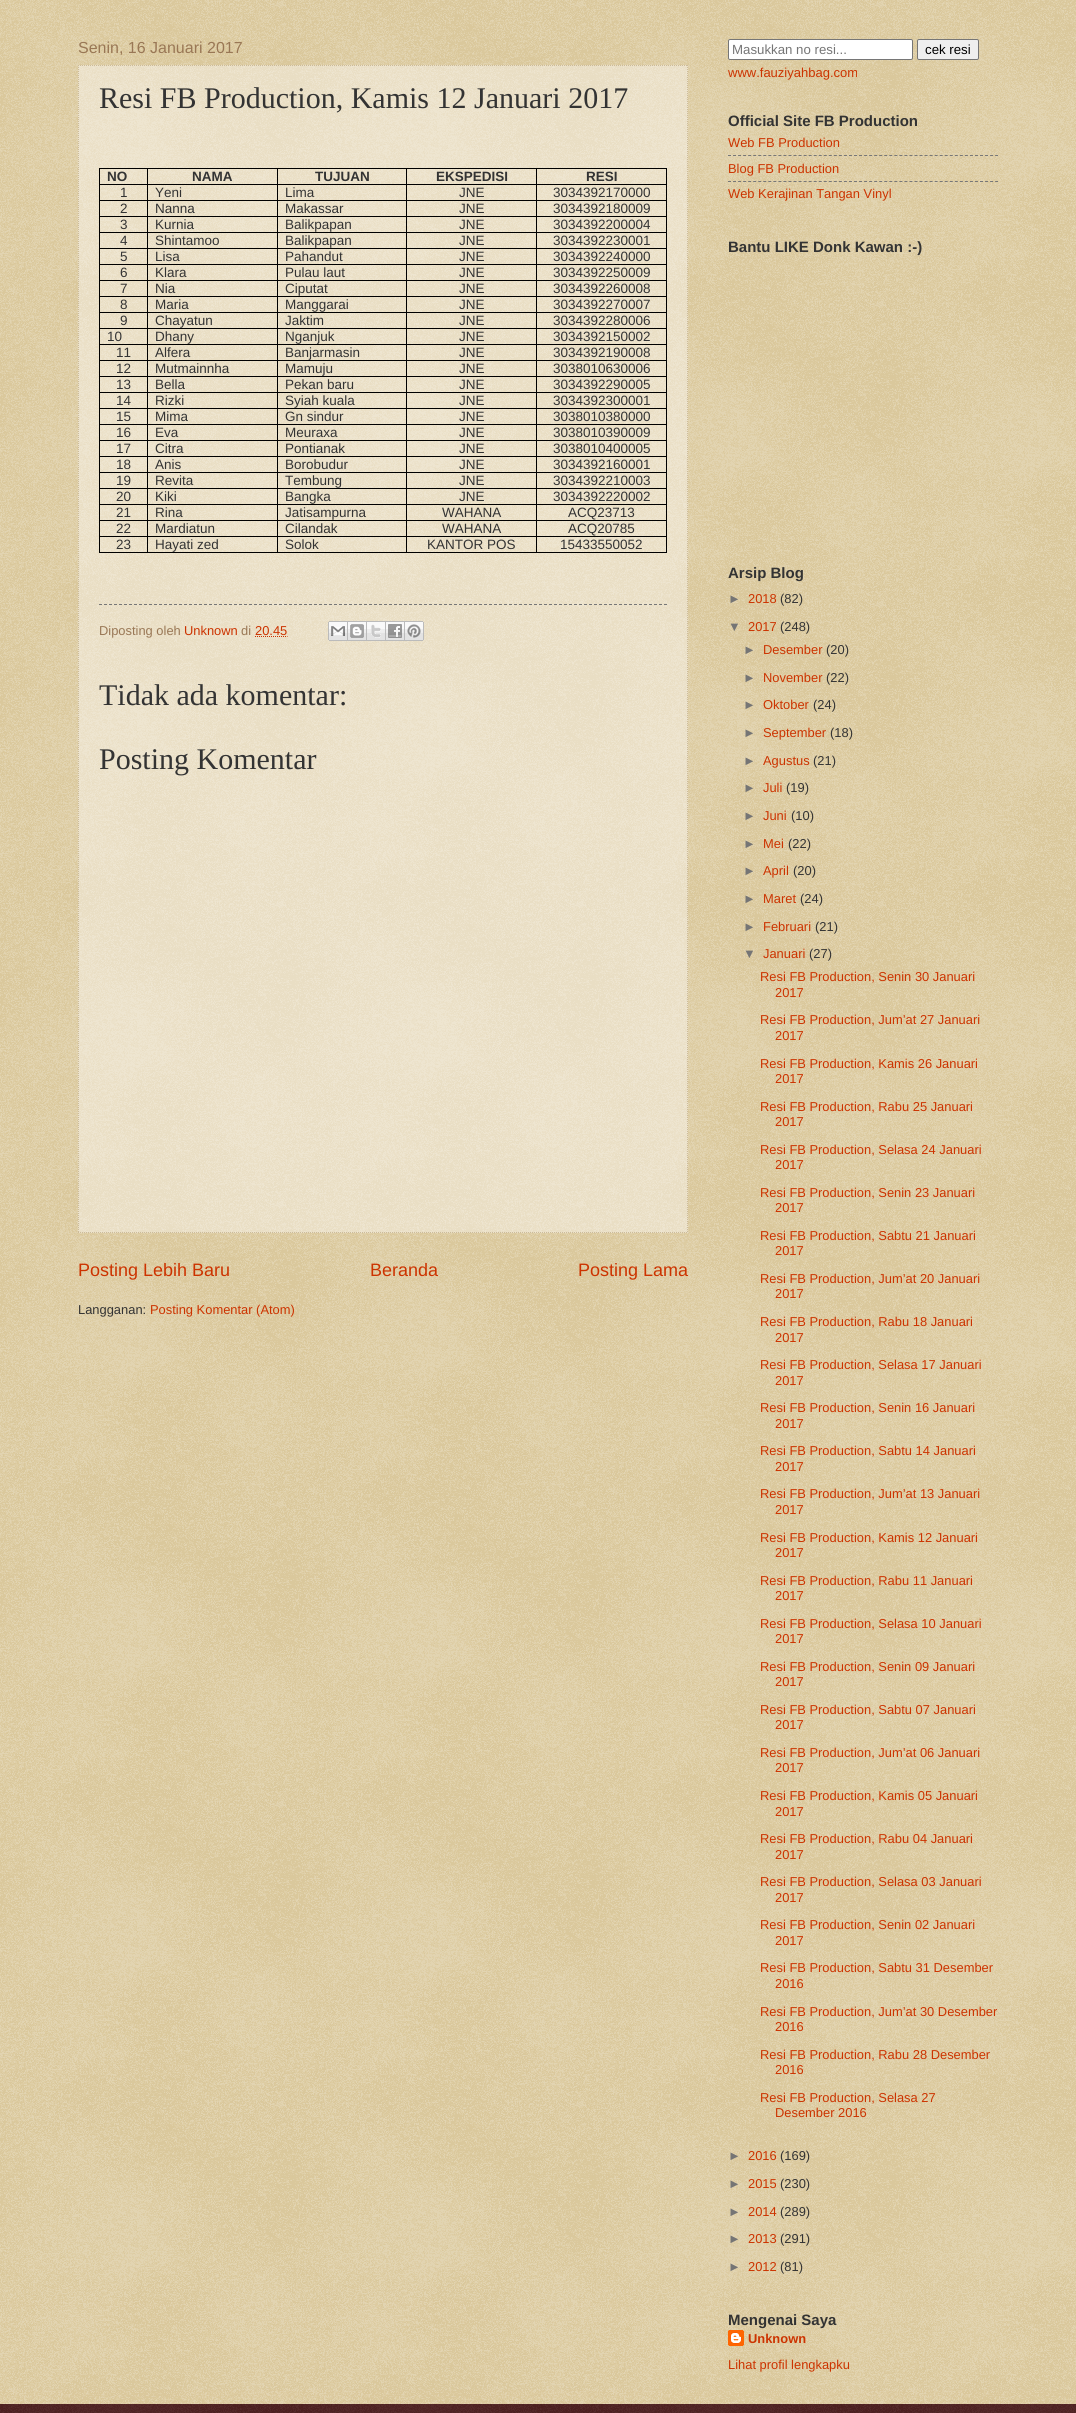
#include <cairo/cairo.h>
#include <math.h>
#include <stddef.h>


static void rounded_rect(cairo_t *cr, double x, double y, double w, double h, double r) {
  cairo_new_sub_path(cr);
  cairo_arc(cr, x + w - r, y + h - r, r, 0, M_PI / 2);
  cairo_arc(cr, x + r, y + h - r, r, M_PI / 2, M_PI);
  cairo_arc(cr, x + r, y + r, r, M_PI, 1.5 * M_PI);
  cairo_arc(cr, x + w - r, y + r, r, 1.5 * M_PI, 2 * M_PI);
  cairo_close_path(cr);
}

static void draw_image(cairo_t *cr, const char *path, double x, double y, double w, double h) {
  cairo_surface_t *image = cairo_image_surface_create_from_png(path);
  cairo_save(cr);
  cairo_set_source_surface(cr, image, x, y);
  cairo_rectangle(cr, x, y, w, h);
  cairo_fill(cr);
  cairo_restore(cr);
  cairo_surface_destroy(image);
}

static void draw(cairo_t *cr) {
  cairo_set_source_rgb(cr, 192 / 255.0, 161 / 255.0, 84 / 255.0);
  cairo_paint(cr);
  draw_image(cr, "images/1.png", 0, 0, 1076, 2404);
  cairo_set_source_rgba(cr, 1, 1, 1, 0.4);
  cairo_rectangle(cr, 78, 65, 610, 1168);
  cairo_fill(cr);
  cairo_new_path(cr);
  cairo_move_to(cr, 78, 65.5);
  cairo_line_to(cr, 688, 65.5);
  cairo_set_source_rgb(cr, 204 / 255.0, 187 / 255.0, 153 / 255.0);
  cairo_set_line_width(cr, 1);
  cairo_set_dash(cr, (double[]){1, 1}, 2, 0);
  cairo_stroke(cr);
  cairo_new_path(cr);
  cairo_move_to(cr, 687.5, 65);
  cairo_line_to(cr, 687.5, 1233);
  cairo_stroke(cr);
  cairo_new_path(cr);
  cairo_move_to(cr, 78, 1232.5);
  cairo_line_to(cr, 688, 1232.5);
  cairo_stroke(cr);
  cairo_new_path(cr);
  cairo_move_to(cr, 78.5, 65);
  cairo_line_to(cr, 78.5, 1233);
  cairo_stroke(cr);
  cairo_set_source_rgb(cr, 0, 0, 0);
  cairo_rectangle(cr, 536, 168, 131, 1);
  cairo_fill(cr);
  cairo_rectangle(cr, 666, 232, 1, 321);
  cairo_fill(cr);
  cairo_rectangle(cr, 666, 184, 1, 49);
  cairo_fill(cr);
  cairo_rectangle(cr, 666, 168, 1, 17);
  cairo_fill(cr);
  cairo_rectangle(cr, 536, 552, 131, 1);
  cairo_fill(cr);
  cairo_rectangle(cr, 536, 536, 1, 17);
  cairo_fill(cr);
  cairo_rectangle(cr, 536, 536, 131, 1);
  cairo_fill(cr);
  cairo_rectangle(cr, 536, 520, 1, 17);
  cairo_fill(cr);
  cairo_rectangle(cr, 536, 520, 131, 1);
  cairo_fill(cr);
  cairo_rectangle(cr, 536, 504, 1, 17);
  cairo_fill(cr);
  cairo_rectangle(cr, 536, 504, 131, 1);
  cairo_fill(cr);
  cairo_rectangle(cr, 536, 488, 1, 17);
  cairo_fill(cr);
  cairo_rectangle(cr, 536, 488, 131, 1);
  cairo_fill(cr);
  cairo_rectangle(cr, 536, 472, 1, 17);
  cairo_fill(cr);
  cairo_rectangle(cr, 536, 472, 131, 1);
  cairo_fill(cr);
  cairo_rectangle(cr, 536, 456, 1, 17);
  cairo_fill(cr);
  cairo_rectangle(cr, 536, 456, 131, 1);
  cairo_fill(cr);
  cairo_rectangle(cr, 536, 440, 1, 17);
  cairo_fill(cr);
  cairo_rectangle(cr, 536, 440, 131, 1);
  cairo_fill(cr);
  cairo_rectangle(cr, 536, 424, 1, 17);
  cairo_fill(cr);
  cairo_rectangle(cr, 536, 424, 131, 1);
  cairo_fill(cr);
  cairo_rectangle(cr, 536, 408, 1, 17);
  cairo_fill(cr);
  cairo_rectangle(cr, 536, 408, 131, 1);
  cairo_fill(cr);
  cairo_rectangle(cr, 536, 392, 1, 17);
  cairo_fill(cr);
  cairo_rectangle(cr, 536, 392, 131, 1);
  cairo_fill(cr);
  cairo_rectangle(cr, 536, 376, 1, 17);
  cairo_fill(cr);
  cairo_rectangle(cr, 536, 376, 131, 1);
  cairo_fill(cr);
  cairo_rectangle(cr, 536, 360, 1, 17);
  cairo_fill(cr);
  cairo_rectangle(cr, 536, 360, 131, 1);
  cairo_fill(cr);
  cairo_rectangle(cr, 536, 344, 1, 17);
  cairo_fill(cr);
  cairo_rectangle(cr, 536, 344, 131, 1);
  cairo_fill(cr);
  cairo_rectangle(cr, 536, 328, 1, 17);
  cairo_fill(cr);
  cairo_rectangle(cr, 536, 328, 131, 1);
  cairo_fill(cr);
  cairo_rectangle(cr, 536, 312, 1, 17);
  cairo_fill(cr);
  cairo_rectangle(cr, 536, 312, 131, 1);
  cairo_fill(cr);
  cairo_rectangle(cr, 536, 296, 1, 17);
  cairo_fill(cr);
  cairo_rectangle(cr, 536, 296, 131, 1);
  cairo_fill(cr);
  cairo_rectangle(cr, 536, 280, 1, 17);
  cairo_fill(cr);
  cairo_rectangle(cr, 536, 280, 131, 1);
  cairo_fill(cr);
  cairo_rectangle(cr, 536, 264, 1, 17);
  cairo_fill(cr);
  cairo_rectangle(cr, 536, 264, 131, 1);
  cairo_fill(cr);
  cairo_rectangle(cr, 536, 248, 1, 17);
  cairo_fill(cr);
  cairo_rectangle(cr, 536, 248, 131, 1);
  cairo_fill(cr);
  cairo_rectangle(cr, 536, 232, 1, 17);
  cairo_fill(cr);
  cairo_rectangle(cr, 536, 232, 131, 1);
  cairo_fill(cr);
  cairo_rectangle(cr, 536, 216, 1, 17);
  cairo_fill(cr);
  cairo_rectangle(cr, 536, 216, 131, 1);
  cairo_fill(cr);
  cairo_rectangle(cr, 536, 200, 1, 17);
  cairo_fill(cr);
  cairo_rectangle(cr, 536, 200, 131, 1);
  cairo_fill(cr);
  cairo_rectangle(cr, 536, 184, 1, 17);
  cairo_fill(cr);
  cairo_rectangle(cr, 536, 184, 131, 1);
  cairo_fill(cr);
  cairo_rectangle(cr, 536, 168, 1, 17);
  cairo_fill(cr);
  cairo_rectangle(cr, 406, 168, 131, 1);
  cairo_fill(cr);
  cairo_rectangle(cr, 406, 552, 131, 1);
  cairo_fill(cr);
  cairo_rectangle(cr, 406, 536, 1, 17);
  cairo_fill(cr);
  cairo_rectangle(cr, 406, 536, 131, 1);
  cairo_fill(cr);
  cairo_rectangle(cr, 406, 520, 1, 17);
  cairo_fill(cr);
  cairo_rectangle(cr, 406, 520, 131, 1);
  cairo_fill(cr);
  cairo_rectangle(cr, 406, 504, 1, 17);
  cairo_fill(cr);
  cairo_rectangle(cr, 406, 504, 131, 1);
  cairo_fill(cr);
  cairo_rectangle(cr, 406, 488, 1, 17);
  cairo_fill(cr);
  cairo_rectangle(cr, 406, 488, 131, 1);
  cairo_fill(cr);
  cairo_rectangle(cr, 406, 472, 1, 17);
  cairo_fill(cr);
  cairo_rectangle(cr, 406, 472, 131, 1);
  cairo_fill(cr);
  cairo_rectangle(cr, 406, 456, 1, 17);
  cairo_fill(cr);
  cairo_rectangle(cr, 406, 456, 131, 1);
  cairo_fill(cr);
  cairo_rectangle(cr, 406, 440, 1, 17);
  cairo_fill(cr);
  cairo_rectangle(cr, 406, 440, 131, 1);
  cairo_fill(cr);
  cairo_rectangle(cr, 406, 424, 1, 17);
  cairo_fill(cr);
  cairo_rectangle(cr, 406, 424, 131, 1);
  cairo_fill(cr);
  cairo_rectangle(cr, 406, 408, 1, 17);
  cairo_fill(cr);
  cairo_rectangle(cr, 406, 408, 131, 1);
  cairo_fill(cr);
  cairo_rectangle(cr, 406, 392, 1, 17);
  cairo_fill(cr);
  cairo_rectangle(cr, 406, 392, 131, 1);
  cairo_fill(cr);
  cairo_rectangle(cr, 406, 376, 1, 17);
  cairo_fill(cr);
  cairo_rectangle(cr, 406, 376, 131, 1);
  cairo_fill(cr);
  cairo_rectangle(cr, 406, 360, 1, 17);
  cairo_fill(cr);
  cairo_rectangle(cr, 406, 360, 131, 1);
  cairo_fill(cr);
  cairo_rectangle(cr, 406, 344, 1, 17);
  cairo_fill(cr);
  cairo_rectangle(cr, 406, 344, 131, 1);
  cairo_fill(cr);
  cairo_rectangle(cr, 406, 328, 1, 17);
  cairo_fill(cr);
  cairo_rectangle(cr, 406, 328, 131, 1);
  cairo_fill(cr);
  cairo_rectangle(cr, 406, 312, 1, 17);
  cairo_fill(cr);
  cairo_rectangle(cr, 406, 312, 131, 1);
  cairo_fill(cr);
  cairo_rectangle(cr, 406, 296, 1, 17);
  cairo_fill(cr);
  cairo_rectangle(cr, 406, 296, 131, 1);
  cairo_fill(cr);
  cairo_rectangle(cr, 406, 280, 1, 17);
  cairo_fill(cr);
  cairo_rectangle(cr, 406, 280, 131, 1);
  cairo_fill(cr);
  cairo_rectangle(cr, 406, 264, 1, 17);
  cairo_fill(cr);
  cairo_rectangle(cr, 406, 264, 131, 1);
  cairo_fill(cr);
  cairo_rectangle(cr, 406, 248, 1, 17);
  cairo_fill(cr);
  cairo_rectangle(cr, 406, 248, 131, 1);
  cairo_fill(cr);
  cairo_rectangle(cr, 406, 232, 1, 17);
  cairo_fill(cr);
  cairo_rectangle(cr, 406, 232, 131, 1);
  cairo_fill(cr);
  cairo_rectangle(cr, 406, 216, 1, 17);
  cairo_fill(cr);
  cairo_rectangle(cr, 406, 216, 131, 1);
  cairo_fill(cr);
  cairo_rectangle(cr, 406, 200, 1, 17);
  cairo_fill(cr);
  cairo_rectangle(cr, 406, 200, 131, 1);
  cairo_fill(cr);
  cairo_rectangle(cr, 406, 184, 1, 17);
  cairo_fill(cr);
  cairo_rectangle(cr, 406, 184, 131, 1);
  cairo_fill(cr);
  cairo_rectangle(cr, 406, 168, 1, 17);
  cairo_fill(cr);
  cairo_rectangle(cr, 277, 168, 130, 1);
  cairo_fill(cr);
  cairo_rectangle(cr, 277, 552, 130, 1);
  cairo_fill(cr);
  cairo_rectangle(cr, 277, 536, 1, 17);
  cairo_fill(cr);
  cairo_rectangle(cr, 277, 536, 130, 1);
  cairo_fill(cr);
  cairo_rectangle(cr, 277, 520, 1, 17);
  cairo_fill(cr);
  cairo_rectangle(cr, 277, 520, 130, 1);
  cairo_fill(cr);
  cairo_rectangle(cr, 277, 504, 1, 17);
  cairo_fill(cr);
  cairo_rectangle(cr, 277, 504, 130, 1);
  cairo_fill(cr);
  cairo_rectangle(cr, 277, 488, 1, 17);
  cairo_fill(cr);
  cairo_rectangle(cr, 277, 488, 130, 1);
  cairo_fill(cr);
  cairo_rectangle(cr, 277, 472, 1, 17);
  cairo_fill(cr);
  cairo_rectangle(cr, 277, 472, 130, 1);
  cairo_fill(cr);
  cairo_rectangle(cr, 277, 456, 1, 17);
  cairo_fill(cr);
  cairo_rectangle(cr, 277, 456, 130, 1);
  cairo_fill(cr);
  cairo_rectangle(cr, 277, 440, 1, 17);
  cairo_fill(cr);
  cairo_rectangle(cr, 277, 440, 130, 1);
  cairo_fill(cr);
  cairo_rectangle(cr, 277, 424, 1, 17);
  cairo_fill(cr);
  cairo_rectangle(cr, 277, 424, 130, 1);
  cairo_fill(cr);
  cairo_rectangle(cr, 277, 408, 1, 17);
  cairo_fill(cr);
  cairo_rectangle(cr, 277, 408, 130, 1);
  cairo_fill(cr);
  cairo_rectangle(cr, 277, 392, 1, 17);
  cairo_fill(cr);
  cairo_rectangle(cr, 277, 392, 130, 1);
  cairo_fill(cr);
  cairo_rectangle(cr, 277, 376, 1, 17);
  cairo_fill(cr);
  cairo_rectangle(cr, 277, 376, 130, 1);
  cairo_fill(cr);
  cairo_rectangle(cr, 277, 360, 1, 17);
  cairo_fill(cr);
  cairo_rectangle(cr, 277, 360, 130, 1);
  cairo_fill(cr);
  cairo_rectangle(cr, 277, 344, 1, 17);
  cairo_fill(cr);
  cairo_rectangle(cr, 277, 344, 130, 1);
  cairo_fill(cr);
  cairo_rectangle(cr, 277, 328, 1, 17);
  cairo_fill(cr);
  cairo_rectangle(cr, 277, 328, 130, 1);
  cairo_fill(cr);
  cairo_rectangle(cr, 277, 312, 1, 17);
  cairo_fill(cr);
  cairo_rectangle(cr, 277, 312, 130, 1);
  cairo_fill(cr);
  cairo_rectangle(cr, 277, 296, 1, 17);
  cairo_fill(cr);
  cairo_rectangle(cr, 277, 296, 130, 1);
  cairo_fill(cr);
  cairo_rectangle(cr, 277, 280, 1, 17);
  cairo_fill(cr);
  cairo_rectangle(cr, 277, 280, 130, 1);
  cairo_fill(cr);
  cairo_rectangle(cr, 277, 264, 1, 17);
  cairo_fill(cr);
  cairo_rectangle(cr, 277, 264, 130, 1);
  cairo_fill(cr);
  cairo_rectangle(cr, 277, 248, 1, 17);
  cairo_fill(cr);
  cairo_rectangle(cr, 277, 248, 130, 1);
  cairo_fill(cr);
  cairo_rectangle(cr, 277, 232, 1, 17);
  cairo_fill(cr);
  cairo_rectangle(cr, 277, 232, 130, 1);
  cairo_fill(cr);
  cairo_rectangle(cr, 277, 216, 1, 17);
  cairo_fill(cr);
  cairo_rectangle(cr, 277, 216, 130, 1);
  cairo_fill(cr);
  cairo_rectangle(cr, 277, 200, 1, 17);
  cairo_fill(cr);
  cairo_rectangle(cr, 277, 200, 130, 1);
  cairo_fill(cr);
  cairo_rectangle(cr, 277, 184, 1, 17);
  cairo_fill(cr);
  cairo_rectangle(cr, 277, 184, 130, 1);
  cairo_fill(cr);
  cairo_rectangle(cr, 277, 168, 1, 17);
  cairo_fill(cr);
  cairo_rectangle(cr, 147, 168, 131, 1);
  cairo_fill(cr);
  cairo_rectangle(cr, 99, 184, 49, 1);
  cairo_fill(cr);
  cairo_rectangle(cr, 99, 200, 49, 1);
  cairo_fill(cr);
  cairo_rectangle(cr, 99, 216, 49, 1);
  cairo_fill(cr);
  cairo_rectangle(cr, 99, 232, 49, 1);
  cairo_fill(cr);
  cairo_rectangle(cr, 99, 248, 49, 1);
  cairo_fill(cr);
  cairo_rectangle(cr, 99, 264, 49, 1);
  cairo_fill(cr);
  cairo_rectangle(cr, 99, 280, 49, 1);
  cairo_fill(cr);
  cairo_rectangle(cr, 99, 296, 49, 1);
  cairo_fill(cr);
  cairo_rectangle(cr, 99, 312, 49, 1);
  cairo_fill(cr);
  cairo_rectangle(cr, 99, 328, 49, 1);
  cairo_fill(cr);
  cairo_rectangle(cr, 99, 344, 49, 1);
  cairo_fill(cr);
  cairo_rectangle(cr, 99, 360, 49, 1);
  cairo_fill(cr);
  cairo_rectangle(cr, 99, 376, 49, 1);
  cairo_fill(cr);
  cairo_rectangle(cr, 99, 392, 49, 1);
  cairo_fill(cr);
  cairo_rectangle(cr, 99, 408, 49, 1);
  cairo_fill(cr);
  cairo_rectangle(cr, 99, 424, 49, 1);
  cairo_fill(cr);
  cairo_rectangle(cr, 99, 440, 49, 1);
  cairo_fill(cr);
  cairo_rectangle(cr, 99, 456, 49, 1);
  cairo_fill(cr);
  cairo_rectangle(cr, 99, 472, 49, 1);
  cairo_fill(cr);
  cairo_rectangle(cr, 99, 488, 49, 1);
  cairo_fill(cr);
  cairo_rectangle(cr, 99, 504, 49, 1);
  cairo_fill(cr);
  cairo_rectangle(cr, 99, 520, 49, 1);
  cairo_fill(cr);
  cairo_rectangle(cr, 99, 536, 49, 1);
  cairo_fill(cr);
  cairo_rectangle(cr, 147, 552, 131, 1);
  cairo_fill(cr);
  cairo_rectangle(cr, 147, 536, 1, 17);
  cairo_fill(cr);
  cairo_rectangle(cr, 147, 536, 131, 1);
  cairo_fill(cr);
  cairo_rectangle(cr, 147, 520, 1, 17);
  cairo_fill(cr);
  cairo_rectangle(cr, 147, 520, 131, 1);
  cairo_fill(cr);
  cairo_rectangle(cr, 147, 504, 1, 17);
  cairo_fill(cr);
  cairo_rectangle(cr, 147, 504, 131, 1);
  cairo_fill(cr);
  cairo_rectangle(cr, 147, 488, 1, 17);
  cairo_fill(cr);
  cairo_rectangle(cr, 147, 488, 131, 1);
  cairo_fill(cr);
  cairo_rectangle(cr, 147, 472, 1, 17);
  cairo_fill(cr);
  cairo_rectangle(cr, 147, 472, 131, 1);
  cairo_fill(cr);
  cairo_rectangle(cr, 147, 456, 1, 17);
  cairo_fill(cr);
  cairo_rectangle(cr, 147, 456, 131, 1);
  cairo_fill(cr);
  cairo_rectangle(cr, 147, 440, 1, 17);
  cairo_fill(cr);
  cairo_rectangle(cr, 147, 440, 131, 1);
  cairo_fill(cr);
  cairo_rectangle(cr, 147, 424, 1, 17);
  cairo_fill(cr);
  cairo_rectangle(cr, 147, 424, 131, 1);
  cairo_fill(cr);
  cairo_rectangle(cr, 147, 408, 1, 17);
  cairo_fill(cr);
  cairo_rectangle(cr, 147, 408, 131, 1);
  cairo_fill(cr);
  cairo_rectangle(cr, 147, 392, 1, 17);
  cairo_fill(cr);
  cairo_rectangle(cr, 147, 392, 131, 1);
  cairo_fill(cr);
  cairo_rectangle(cr, 147, 376, 1, 17);
  cairo_fill(cr);
  cairo_rectangle(cr, 147, 376, 131, 1);
  cairo_fill(cr);
  cairo_rectangle(cr, 147, 360, 1, 17);
  cairo_fill(cr);
  cairo_rectangle(cr, 147, 360, 131, 1);
  cairo_fill(cr);
  cairo_rectangle(cr, 147, 344, 1, 17);
  cairo_fill(cr);
  cairo_rectangle(cr, 147, 344, 131, 1);
  cairo_fill(cr);
  cairo_rectangle(cr, 147, 328, 1, 17);
  cairo_fill(cr);
  cairo_rectangle(cr, 147, 328, 131, 1);
  cairo_fill(cr);
  cairo_rectangle(cr, 147, 312, 1, 17);
  cairo_fill(cr);
  cairo_rectangle(cr, 147, 312, 131, 1);
  cairo_fill(cr);
  cairo_rectangle(cr, 147, 296, 1, 17);
  cairo_fill(cr);
  cairo_rectangle(cr, 147, 296, 131, 1);
  cairo_fill(cr);
  cairo_rectangle(cr, 147, 280, 1, 17);
  cairo_fill(cr);
  cairo_rectangle(cr, 147, 280, 131, 1);
  cairo_fill(cr);
  cairo_rectangle(cr, 147, 264, 1, 17);
  cairo_fill(cr);
  cairo_rectangle(cr, 147, 264, 131, 1);
  cairo_fill(cr);
  cairo_rectangle(cr, 147, 248, 1, 17);
  cairo_fill(cr);
  cairo_rectangle(cr, 147, 248, 131, 1);
  cairo_fill(cr);
  cairo_rectangle(cr, 147, 232, 1, 17);
  cairo_fill(cr);
  cairo_rectangle(cr, 147, 232, 131, 1);
  cairo_fill(cr);
  cairo_rectangle(cr, 147, 216, 1, 17);
  cairo_fill(cr);
  cairo_rectangle(cr, 147, 216, 131, 1);
  cairo_fill(cr);
  cairo_rectangle(cr, 147, 200, 1, 17);
  cairo_fill(cr);
  cairo_rectangle(cr, 147, 200, 131, 1);
  cairo_fill(cr);
  cairo_rectangle(cr, 147, 184, 1, 17);
  cairo_fill(cr);
  cairo_rectangle(cr, 147, 184, 131, 1);
  cairo_fill(cr);
  cairo_rectangle(cr, 147, 168, 1, 17);
  cairo_fill(cr);
  cairo_rectangle(cr, 99, 168, 49, 1);
  cairo_fill(cr);
  cairo_rectangle(cr, 99, 552, 49, 1);
  cairo_fill(cr);
  cairo_rectangle(cr, 99, 536, 1, 17);
  cairo_fill(cr);
  cairo_rectangle(cr, 99, 520, 1, 17);
  cairo_fill(cr);
  cairo_rectangle(cr, 99, 504, 1, 17);
  cairo_fill(cr);
  cairo_rectangle(cr, 99, 488, 1, 17);
  cairo_fill(cr);
  cairo_rectangle(cr, 99, 472, 1, 17);
  cairo_fill(cr);
  cairo_rectangle(cr, 99, 456, 1, 17);
  cairo_fill(cr);
  cairo_rectangle(cr, 99, 440, 1, 17);
  cairo_fill(cr);
  cairo_rectangle(cr, 99, 424, 1, 17);
  cairo_fill(cr);
  cairo_rectangle(cr, 99, 408, 1, 17);
  cairo_fill(cr);
  cairo_rectangle(cr, 99, 392, 1, 17);
  cairo_fill(cr);
  cairo_rectangle(cr, 99, 376, 1, 17);
  cairo_fill(cr);
  cairo_rectangle(cr, 99, 360, 1, 17);
  cairo_fill(cr);
  cairo_rectangle(cr, 99, 344, 1, 17);
  cairo_fill(cr);
  cairo_rectangle(cr, 99, 328, 1, 17);
  cairo_fill(cr);
  cairo_rectangle(cr, 99, 312, 1, 17);
  cairo_fill(cr);
  cairo_rectangle(cr, 99, 296, 1, 17);
  cairo_fill(cr);
  cairo_rectangle(cr, 99, 280, 1, 17);
  cairo_fill(cr);
  cairo_rectangle(cr, 99, 264, 1, 17);
  cairo_fill(cr);
  cairo_rectangle(cr, 99, 248, 1, 17);
  cairo_fill(cr);
  cairo_rectangle(cr, 99, 232, 1, 17);
  cairo_fill(cr);
  cairo_rectangle(cr, 99, 216, 1, 17);
  cairo_fill(cr);
  cairo_rectangle(cr, 99, 200, 1, 17);
  cairo_fill(cr);
  cairo_rectangle(cr, 99, 184, 1, 17);
  cairo_fill(cr);
  cairo_rectangle(cr, 99, 168, 1, 17);
  cairo_fill(cr);
  cairo_new_path(cr);
  cairo_move_to(cr, 99, 604.5);
  cairo_line_to(cr, 667, 604.5);
  cairo_set_source_rgb(cr, 119 / 255.0, 119 / 255.0, 119 / 255.0);
  cairo_set_dash(cr, (double[]){3, 2}, 2, 0);
  cairo_stroke(cr);
  cairo_new_path(cr);
  cairo_move_to(cr, 255, 636.5);
  cairo_line_to(cr, 287.5, 636.5);
  cairo_set_source_rgb(cr, 204 / 255.0, 51 / 255.0, 0);
  cairo_set_dash(cr, (double[]){1, 1}, 2, 0);
  cairo_stroke(cr);
  draw_image(cr, "images/2.png", 328, 621, 20, 20);
  draw_image(cr, "images/3.png", 348, 621, 19, 20);
  draw_image(cr, "images/4.png", 367, 621, 19, 20);
  draw_image(cr, "images/5.png", 386, 621, 19, 20);
  draw_image(cr, "images/6.png", 405, 621, 19, 20);
  cairo_set_source_rgb(cr, 1, 1, 1);
  rounded_rect(cr, 728.5, 39.5, 184, 20, 1.5);
  cairo_fill_preserve(cr);
  cairo_set_source_rgb(cr, 118 / 255.0, 118 / 255.0, 118 / 255.0);
  cairo_set_dash(cr, NULL, 0, 0);
  cairo_stroke(cr);
  cairo_set_source_rgb(cr, 239 / 255.0, 239 / 255.0, 239 / 255.0);
  rounded_rect(cr, 917.5, 39.5, 61, 20, 1.5);
  cairo_fill_preserve(cr);
  cairo_set_source_rgb(cr, 118 / 255.0, 118 / 255.0, 118 / 255.0);
  cairo_stroke(cr);
  cairo_new_path(cr);
  cairo_move_to(cr, 728, 155.5);
  cairo_line_to(cr, 998, 155.5);
  cairo_set_source_rgb(cr, 119 / 255.0, 119 / 255.0, 119 / 255.0);
  cairo_set_dash(cr, (double[]){3, 2.04}, 2, 0);
  cairo_stroke(cr);
  cairo_new_path(cr);
  cairo_move_to(cr, 728, 181.5);
  cairo_line_to(cr, 998, 181.5);
  cairo_stroke(cr);
  draw_image(cr, "images/7.png", 728, 2330, 16, 16);
  cairo_set_source_rgb(cr, 51 / 255.0, 0, 0);
  cairo_rectangle(cr, 0, 2404, 1076, 9);
  cairo_fill(cr);
  draw_image(cr, "images/8.png", 0, 2404, 1076, 9);
  cairo_select_font_face(cr, "Liberation Sans", CAIRO_FONT_SLANT_NORMAL, CAIRO_FONT_WEIGHT_NORMAL);
  cairo_set_font_size(cr, 16);
  cairo_set_source_rgb(cr, 153 / 255.0, 119 / 255.0, 85 / 255.0);
  cairo_move_to(cr, 78, 53);
  cairo_show_text(cr, "Senin, 16 Januari 2017");
  cairo_select_font_face(cr, "Liberation Serif", CAIRO_FONT_SLANT_NORMAL, CAIRO_FONT_WEIGHT_NORMAL);
  cairo_set_font_size(cr, 30);
  cairo_set_source_rgb(cr, 51 / 255.0, 51 / 255.0, 51 / 255.0);
  cairo_move_to(cr, 99, 108);
  cairo_show_text(cr, "Resi FB Production, Kamis 12 Januari 2017");
  cairo_select_font_face(cr, "Liberation Sans", CAIRO_FONT_SLANT_NORMAL, CAIRO_FONT_WEIGHT_BOLD);
  cairo_set_font_size(cr, 13.5);
  cairo_move_to(cr, 107, 181);
  cairo_show_text(cr, "NO");
  cairo_move_to(cr, 192, 181);
  cairo_show_text(cr, "NAMA");
  cairo_move_to(cr, 315, 181);
  cairo_show_text(cr, "TUJUAN");
  cairo_move_to(cr, 436, 181);
  cairo_show_text(cr, "EKSPEDISI");
  cairo_move_to(cr, 586, 181);
  cairo_show_text(cr, "RESI");
  cairo_select_font_face(cr, "Liberation Sans", CAIRO_FONT_SLANT_NORMAL, CAIRO_FONT_WEIGHT_NORMAL);
  cairo_move_to(cr, 120, 197);
  cairo_show_text(cr, "1");
  cairo_move_to(cr, 155, 197);
  cairo_show_text(cr, "Yeni");
  cairo_move_to(cr, 285, 197);
  cairo_show_text(cr, "Lima");
  cairo_move_to(cr, 459, 197);
  cairo_show_text(cr, "JNE");
  cairo_move_to(cr, 553, 197);
  cairo_show_text(cr, "3034392170000");
  cairo_move_to(cr, 120, 213);
  cairo_show_text(cr, "2");
  cairo_move_to(cr, 155, 213);
  cairo_show_text(cr, "Nanna");
  cairo_move_to(cr, 285, 213);
  cairo_show_text(cr, "Makassar");
  cairo_move_to(cr, 459, 213);
  cairo_show_text(cr, "JNE");
  cairo_move_to(cr, 553, 213);
  cairo_show_text(cr, "3034392180009");
  cairo_move_to(cr, 120, 229);
  cairo_show_text(cr, "3");
  cairo_move_to(cr, 155, 229);
  cairo_show_text(cr, "Kurnia");
  cairo_move_to(cr, 285, 229);
  cairo_show_text(cr, "Balikpapan");
  cairo_move_to(cr, 459, 229);
  cairo_show_text(cr, "JNE");
  cairo_move_to(cr, 553, 229);
  cairo_show_text(cr, "3034392200004");
  cairo_move_to(cr, 120, 245);
  cairo_show_text(cr, "4");
  cairo_move_to(cr, 155, 245);
  cairo_show_text(cr, "Shintamoo");
  cairo_move_to(cr, 285, 245);
  cairo_show_text(cr, "Balikpapan");
  cairo_move_to(cr, 459, 245);
  cairo_show_text(cr, "JNE");
  cairo_move_to(cr, 553, 245);
  cairo_show_text(cr, "3034392230001");
  cairo_move_to(cr, 120, 261);
  cairo_show_text(cr, "5");
  cairo_move_to(cr, 155, 261);
  cairo_show_text(cr, "Lisa");
  cairo_move_to(cr, 285, 261);
  cairo_show_text(cr, "Pahandut");
  cairo_move_to(cr, 459, 261);
  cairo_show_text(cr, "JNE");
  cairo_move_to(cr, 553, 261);
  cairo_show_text(cr, "3034392240000");
  cairo_move_to(cr, 120, 277);
  cairo_show_text(cr, "6");
  cairo_move_to(cr, 155, 277);
  cairo_show_text(cr, "Klara");
  cairo_move_to(cr, 285, 277);
  cairo_show_text(cr, "Pulau laut");
  cairo_move_to(cr, 459, 277);
  cairo_show_text(cr, "JNE");
  cairo_move_to(cr, 553, 277);
  cairo_show_text(cr, "3034392250009");
  cairo_move_to(cr, 120, 293);
  cairo_show_text(cr, "7");
  cairo_move_to(cr, 155, 293);
  cairo_show_text(cr, "Nia");
  cairo_move_to(cr, 285, 293);
  cairo_show_text(cr, "Ciputat");
  cairo_move_to(cr, 459, 293);
  cairo_show_text(cr, "JNE");
  cairo_move_to(cr, 553, 293);
  cairo_show_text(cr, "3034392260008");
  cairo_move_to(cr, 120, 309);
  cairo_show_text(cr, "8");
  cairo_move_to(cr, 155, 309);
  cairo_show_text(cr, "Maria");
  cairo_move_to(cr, 285, 309);
  cairo_show_text(cr, "Manggarai");
  cairo_move_to(cr, 459, 309);
  cairo_show_text(cr, "JNE");
  cairo_move_to(cr, 553, 309);
  cairo_show_text(cr, "3034392270007");
  cairo_move_to(cr, 120, 325);
  cairo_show_text(cr, "9");
  cairo_move_to(cr, 155, 325);
  cairo_show_text(cr, "Chayatun");
  cairo_move_to(cr, 285, 325);
  cairo_show_text(cr, "Jaktim");
  cairo_move_to(cr, 459, 325);
  cairo_show_text(cr, "JNE");
  cairo_move_to(cr, 553, 325);
  cairo_show_text(cr, "3034392280006");
  cairo_move_to(cr, 107, 341);
  cairo_show_text(cr, "10");
  cairo_move_to(cr, 155, 341);
  cairo_show_text(cr, "Dhany");
  cairo_move_to(cr, 285, 341);
  cairo_show_text(cr, "Nganjuk");
  cairo_move_to(cr, 459, 341);
  cairo_show_text(cr, "JNE");
  cairo_move_to(cr, 553, 341);
  cairo_show_text(cr, "3034392150002");
  cairo_move_to(cr, 116, 357);
  cairo_show_text(cr, "11");
  cairo_move_to(cr, 155, 357);
  cairo_show_text(cr, "Alfera");
  cairo_move_to(cr, 285, 357);
  cairo_show_text(cr, "Banjarmasin");
  cairo_move_to(cr, 459, 357);
  cairo_show_text(cr, "JNE");
  cairo_move_to(cr, 553, 357);
  cairo_show_text(cr, "3034392190008");
  cairo_move_to(cr, 116, 373);
  cairo_show_text(cr, "12");
  cairo_move_to(cr, 155, 373);
  cairo_show_text(cr, "Mutmainnha");
  cairo_move_to(cr, 285, 373);
  cairo_show_text(cr, "Mamuju");
  cairo_move_to(cr, 459, 373);
  cairo_show_text(cr, "JNE");
  cairo_move_to(cr, 553, 373);
  cairo_show_text(cr, "3038010630006");
  cairo_move_to(cr, 116, 389);
  cairo_show_text(cr, "13");
  cairo_move_to(cr, 155, 389);
  cairo_show_text(cr, "Bella");
  cairo_move_to(cr, 285, 389);
  cairo_show_text(cr, "Pekan baru");
  cairo_move_to(cr, 459, 389);
  cairo_show_text(cr, "JNE");
  cairo_move_to(cr, 553, 389);
  cairo_show_text(cr, "3034392290005");
  cairo_move_to(cr, 116, 405);
  cairo_show_text(cr, "14");
  cairo_move_to(cr, 155, 405);
  cairo_show_text(cr, "Rizki");
  cairo_move_to(cr, 285, 405);
  cairo_show_text(cr, "Syiah kuala");
  cairo_move_to(cr, 459, 405);
  cairo_show_text(cr, "JNE");
  cairo_move_to(cr, 553, 405);
  cairo_show_text(cr, "3034392300001");
  cairo_move_to(cr, 116, 421);
  cairo_show_text(cr, "15");
  cairo_move_to(cr, 155, 421);
  cairo_show_text(cr, "Mima");
  cairo_move_to(cr, 285, 421);
  cairo_show_text(cr, "Gn sindur");
  cairo_move_to(cr, 459, 421);
  cairo_show_text(cr, "JNE");
  cairo_move_to(cr, 553, 421);
  cairo_show_text(cr, "3038010380000");
  cairo_move_to(cr, 116, 437);
  cairo_show_text(cr, "16");
  cairo_move_to(cr, 155, 437);
  cairo_show_text(cr, "Eva");
  cairo_move_to(cr, 285, 437);
  cairo_show_text(cr, "Meuraxa");
  cairo_move_to(cr, 459, 437);
  cairo_show_text(cr, "JNE");
  cairo_move_to(cr, 553, 437);
  cairo_show_text(cr, "3038010390009");
  cairo_move_to(cr, 116, 453);
  cairo_show_text(cr, "17");
  cairo_move_to(cr, 155, 453);
  cairo_show_text(cr, "Citra");
  cairo_move_to(cr, 285, 453);
  cairo_show_text(cr, "Pontianak");
  cairo_move_to(cr, 459, 453);
  cairo_show_text(cr, "JNE");
  cairo_move_to(cr, 553, 453);
  cairo_show_text(cr, "3038010400005");
  cairo_move_to(cr, 116, 469);
  cairo_show_text(cr, "18");
  cairo_move_to(cr, 155, 469);
  cairo_show_text(cr, "Anis");
  cairo_move_to(cr, 285, 469);
  cairo_show_text(cr, "Borobudur");
  cairo_move_to(cr, 459, 469);
  cairo_show_text(cr, "JNE");
  cairo_move_to(cr, 553, 469);
  cairo_show_text(cr, "3034392160001");
  cairo_move_to(cr, 116, 485);
  cairo_show_text(cr, "19");
  cairo_move_to(cr, 155, 485);
  cairo_show_text(cr, "Revita");
  cairo_move_to(cr, 285, 485);
  cairo_show_text(cr, "Tembung");
  cairo_move_to(cr, 459, 485);
  cairo_show_text(cr, "JNE");
  cairo_move_to(cr, 553, 485);
  cairo_show_text(cr, "3034392210003");
  cairo_move_to(cr, 116, 501);
  cairo_show_text(cr, "20");
  cairo_move_to(cr, 155, 501);
  cairo_show_text(cr, "Kiki");
  cairo_move_to(cr, 285, 501);
  cairo_show_text(cr, "Bangka");
  cairo_move_to(cr, 459, 501);
  cairo_show_text(cr, "JNE");
  cairo_move_to(cr, 553, 501);
  cairo_show_text(cr, "3034392220002");
  cairo_move_to(cr, 116, 517);
  cairo_show_text(cr, "21");
  cairo_move_to(cr, 155, 517);
  cairo_show_text(cr, "Rina");
  cairo_move_to(cr, 285, 517);
  cairo_show_text(cr, "Jatisampurna");
  cairo_move_to(cr, 442, 517);
  cairo_show_text(cr, "WAHANA");
  cairo_move_to(cr, 568, 517);
  cairo_show_text(cr, "ACQ23713");
  cairo_move_to(cr, 116, 533);
  cairo_show_text(cr, "22");
  cairo_move_to(cr, 155, 533);
  cairo_show_text(cr, "Mardiatun");
  cairo_move_to(cr, 285, 533);
  cairo_show_text(cr, "Cilandak");
  cairo_move_to(cr, 442, 533);
  cairo_show_text(cr, "WAHANA");
  cairo_move_to(cr, 568, 533);
  cairo_show_text(cr, "ACQ20785");
  cairo_move_to(cr, 116, 549);
  cairo_show_text(cr, "23");
  cairo_move_to(cr, 155, 549);
  cairo_show_text(cr, "Hayati zed");
  cairo_move_to(cr, 285, 549);
  cairo_show_text(cr, "Solok");
  cairo_move_to(cr, 427, 549);
  cairo_show_text(cr, "KANTOR POS");
  cairo_move_to(cr, 560, 549);
  cairo_show_text(cr, "15433550052");
  cairo_set_font_size(cr, 12.9);
  cairo_set_source_rgb(cr, 153 / 255.0, 119 / 255.0, 85 / 255.0);
  cairo_move_to(cr, 99, 635);
  cairo_show_text(cr, "Diposting oleh");
  cairo_set_source_rgb(cr, 204 / 255.0, 51 / 255.0, 0);
  cairo_move_to(cr, 184, 635);
  cairo_show_text(cr, "Unknown");
  cairo_set_source_rgb(cr, 153 / 255.0, 119 / 255.0, 85 / 255.0);
  cairo_move_to(cr, 241, 635);
  cairo_show_text(cr, "di");
  cairo_set_source_rgb(cr, 204 / 255.0, 51 / 255.0, 0);
  cairo_move_to(cr, 255, 635);
  cairo_show_text(cr, "20.45");
  cairo_select_font_face(cr, "Liberation Serif", CAIRO_FONT_SLANT_NORMAL, CAIRO_FONT_WEIGHT_NORMAL);
  cairo_set_font_size(cr, 30);
  cairo_set_source_rgb(cr, 51 / 255.0, 51 / 255.0, 51 / 255.0);
  cairo_move_to(cr, 99, 705);
  cairo_show_text(cr, "Tidak ada komentar:");
  cairo_move_to(cr, 99, 769);
  cairo_show_text(cr, "Posting Komentar");
  cairo_select_font_face(cr, "Liberation Sans", CAIRO_FONT_SLANT_NORMAL, CAIRO_FONT_WEIGHT_NORMAL);
  cairo_set_font_size(cr, 18);
  cairo_set_source_rgb(cr, 204 / 255.0, 51 / 255.0, 0);
  cairo_move_to(cr, 78, 1276);
  cairo_show_text(cr, "Posting Lebih Baru");
  cairo_move_to(cr, 370, 1276);
  cairo_show_text(cr, "Beranda");
  cairo_move_to(cr, 578, 1276);
  cairo_show_text(cr, "Posting Lama");
  cairo_set_font_size(cr, 12.9);
  cairo_set_source_rgb(cr, 51 / 255.0, 51 / 255.0, 51 / 255.0);
  cairo_move_to(cr, 78, 1314);
  cairo_show_text(cr, "Langganan:");
  cairo_set_source_rgb(cr, 204 / 255.0, 51 / 255.0, 0);
  cairo_move_to(cr, 150, 1314);
  cairo_show_text(cr, "Posting Komentar (Atom)");
  cairo_set_font_size(cr, 13.25);
  cairo_set_source_rgb(cr, 117 / 255.0, 117 / 255.0, 117 / 255.0);
  cairo_move_to(cr, 732, 54);
  cairo_show_text(cr, "Masukkan no resi...");
  cairo_set_source_rgb(cr, 0, 0, 0);
  cairo_move_to(cr, 925, 54);
  cairo_show_text(cr, "cek resi");
  cairo_set_font_size(cr, 13);
  cairo_set_source_rgb(cr, 204 / 255.0, 51 / 255.0, 0);
  cairo_move_to(cr, 728, 77);
  cairo_show_text(cr, "www.fauziyahbag.com");
  cairo_select_font_face(cr, "Liberation Sans", CAIRO_FONT_SLANT_NORMAL, CAIRO_FONT_WEIGHT_BOLD);
  cairo_set_font_size(cr, 15);
  cairo_set_source_rgb(cr, 51 / 255.0, 51 / 255.0, 51 / 255.0);
  cairo_move_to(cr, 728, 126);
  cairo_show_text(cr, "Official Site FB Production");
  cairo_select_font_face(cr, "Liberation Sans", CAIRO_FONT_SLANT_NORMAL, CAIRO_FONT_WEIGHT_NORMAL);
  cairo_set_font_size(cr, 12.9);
  cairo_set_source_rgb(cr, 204 / 255.0, 51 / 255.0, 0);
  cairo_move_to(cr, 728, 147);
  cairo_show_text(cr, "Web FB Production");
  cairo_move_to(cr, 728, 173);
  cairo_show_text(cr, "Blog FB Production");
  cairo_move_to(cr, 728, 198);
  cairo_show_text(cr, "Web Kerajinan Tangan Vinyl");
  cairo_select_font_face(cr, "Liberation Sans", CAIRO_FONT_SLANT_NORMAL, CAIRO_FONT_WEIGHT_BOLD);
  cairo_set_font_size(cr, 15);
  cairo_set_source_rgb(cr, 51 / 255.0, 51 / 255.0, 51 / 255.0);
  cairo_move_to(cr, 728, 252);
  cairo_show_text(cr, "Bantu LIKE Donk Kawan :-)");
  cairo_move_to(cr, 728, 578);
  cairo_show_text(cr, "Arsip Blog");
  cairo_select_font_face(cr, "Liberation Sans", CAIRO_FONT_SLANT_NORMAL, CAIRO_FONT_WEIGHT_NORMAL);
  cairo_set_font_size(cr, 12.9);
  cairo_set_source_rgb(cr, 117 / 255.0, 117 / 255.0, 117 / 255.0);
  cairo_move_to(cr, 728, 603);
  cairo_show_text(cr, "►");
  cairo_set_source_rgb(cr, 204 / 255.0, 51 / 255.0, 0);
  cairo_move_to(cr, 748, 603);
  cairo_show_text(cr, "2018");
  cairo_set_source_rgb(cr, 51 / 255.0, 51 / 255.0, 51 / 255.0);
  cairo_move_to(cr, 780, 603);
  cairo_show_text(cr, "(82)");
  cairo_set_source_rgb(cr, 117 / 255.0, 117 / 255.0, 117 / 255.0);
  cairo_move_to(cr, 728, 631);
  cairo_show_text(cr, "▼");
  cairo_set_source_rgb(cr, 204 / 255.0, 51 / 255.0, 0);
  cairo_move_to(cr, 748, 631);
  cairo_show_text(cr, "2017");
  cairo_set_source_rgb(cr, 51 / 255.0, 51 / 255.0, 51 / 255.0);
  cairo_move_to(cr, 780, 631);
  cairo_show_text(cr, "(248)");
  cairo_set_source_rgb(cr, 117 / 255.0, 117 / 255.0, 117 / 255.0);
  cairo_move_to(cr, 743, 654);
  cairo_show_text(cr, "►");
  cairo_set_source_rgb(cr, 204 / 255.0, 51 / 255.0, 0);
  cairo_move_to(cr, 763, 654);
  cairo_show_text(cr, "Desember");
  cairo_set_source_rgb(cr, 51 / 255.0, 51 / 255.0, 51 / 255.0);
  cairo_move_to(cr, 826, 654);
  cairo_show_text(cr, "(20)");
  cairo_set_source_rgb(cr, 117 / 255.0, 117 / 255.0, 117 / 255.0);
  cairo_move_to(cr, 743, 682);
  cairo_show_text(cr, "►");
  cairo_set_source_rgb(cr, 204 / 255.0, 51 / 255.0, 0);
  cairo_move_to(cr, 763, 682);
  cairo_show_text(cr, "November");
  cairo_set_source_rgb(cr, 51 / 255.0, 51 / 255.0, 51 / 255.0);
  cairo_move_to(cr, 826, 682);
  cairo_show_text(cr, "(22)");
  cairo_set_source_rgb(cr, 117 / 255.0, 117 / 255.0, 117 / 255.0);
  cairo_move_to(cr, 743, 709);
  cairo_show_text(cr, "►");
  cairo_set_source_rgb(cr, 204 / 255.0, 51 / 255.0, 0);
  cairo_move_to(cr, 763, 709);
  cairo_show_text(cr, "Oktober");
  cairo_set_source_rgb(cr, 51 / 255.0, 51 / 255.0, 51 / 255.0);
  cairo_move_to(cr, 813, 709);
  cairo_show_text(cr, "(24)");
  cairo_set_source_rgb(cr, 117 / 255.0, 117 / 255.0, 117 / 255.0);
  cairo_move_to(cr, 743, 737);
  cairo_show_text(cr, "►");
  cairo_set_source_rgb(cr, 204 / 255.0, 51 / 255.0, 0);
  cairo_move_to(cr, 763, 737);
  cairo_show_text(cr, "September");
  cairo_set_source_rgb(cr, 51 / 255.0, 51 / 255.0, 51 / 255.0);
  cairo_move_to(cr, 830, 737);
  cairo_show_text(cr, "(18)");
  cairo_set_source_rgb(cr, 117 / 255.0, 117 / 255.0, 117 / 255.0);
  cairo_move_to(cr, 743, 765);
  cairo_show_text(cr, "►");
  cairo_set_source_rgb(cr, 204 / 255.0, 51 / 255.0, 0);
  cairo_move_to(cr, 763, 765);
  cairo_show_text(cr, "Agustus");
  cairo_set_source_rgb(cr, 51 / 255.0, 51 / 255.0, 51 / 255.0);
  cairo_move_to(cr, 813, 765);
  cairo_show_text(cr, "(21)");
  cairo_set_source_rgb(cr, 117 / 255.0, 117 / 255.0, 117 / 255.0);
  cairo_move_to(cr, 743, 792);
  cairo_show_text(cr, "►");
  cairo_set_source_rgb(cr, 204 / 255.0, 51 / 255.0, 0);
  cairo_move_to(cr, 763, 792);
  cairo_show_text(cr, "Juli");
  cairo_set_source_rgb(cr, 51 / 255.0, 51 / 255.0, 51 / 255.0);
  cairo_move_to(cr, 786, 792);
  cairo_show_text(cr, "(19)");
  cairo_set_source_rgb(cr, 117 / 255.0, 117 / 255.0, 117 / 255.0);
  cairo_move_to(cr, 743, 820);
  cairo_show_text(cr, "►");
  cairo_set_source_rgb(cr, 204 / 255.0, 51 / 255.0, 0);
  cairo_move_to(cr, 763, 820);
  cairo_show_text(cr, "Juni");
  cairo_set_source_rgb(cr, 51 / 255.0, 51 / 255.0, 51 / 255.0);
  cairo_move_to(cr, 791, 820);
  cairo_show_text(cr, "(10)");
  cairo_set_source_rgb(cr, 117 / 255.0, 117 / 255.0, 117 / 255.0);
  cairo_move_to(cr, 743, 848);
  cairo_show_text(cr, "►");
  cairo_set_source_rgb(cr, 204 / 255.0, 51 / 255.0, 0);
  cairo_move_to(cr, 763, 848);
  cairo_show_text(cr, "Mei");
  cairo_set_source_rgb(cr, 51 / 255.0, 51 / 255.0, 51 / 255.0);
  cairo_move_to(cr, 788, 848);
  cairo_show_text(cr, "(22)");
  cairo_set_source_rgb(cr, 117 / 255.0, 117 / 255.0, 117 / 255.0);
  cairo_move_to(cr, 743, 875);
  cairo_show_text(cr, "►");
  cairo_set_source_rgb(cr, 204 / 255.0, 51 / 255.0, 0);
  cairo_move_to(cr, 763, 875);
  cairo_show_text(cr, "April");
  cairo_set_source_rgb(cr, 51 / 255.0, 51 / 255.0, 51 / 255.0);
  cairo_move_to(cr, 793, 875);
  cairo_show_text(cr, "(20)");
  cairo_set_source_rgb(cr, 117 / 255.0, 117 / 255.0, 117 / 255.0);
  cairo_move_to(cr, 743, 903);
  cairo_show_text(cr, "►");
  cairo_set_source_rgb(cr, 204 / 255.0, 51 / 255.0, 0);
  cairo_move_to(cr, 763, 903);
  cairo_show_text(cr, "Maret");
  cairo_set_source_rgb(cr, 51 / 255.0, 51 / 255.0, 51 / 255.0);
  cairo_move_to(cr, 800, 903);
  cairo_show_text(cr, "(24)");
  cairo_set_source_rgb(cr, 117 / 255.0, 117 / 255.0, 117 / 255.0);
  cairo_move_to(cr, 743, 931);
  cairo_show_text(cr, "►");
  cairo_set_source_rgb(cr, 204 / 255.0, 51 / 255.0, 0);
  cairo_move_to(cr, 763, 931);
  cairo_show_text(cr, "Februari");
  cairo_set_source_rgb(cr, 51 / 255.0, 51 / 255.0, 51 / 255.0);
  cairo_move_to(cr, 815, 931);
  cairo_show_text(cr, "(21)");
  cairo_set_source_rgb(cr, 117 / 255.0, 117 / 255.0, 117 / 255.0);
  cairo_move_to(cr, 743, 958);
  cairo_show_text(cr, "▼");
  cairo_set_source_rgb(cr, 204 / 255.0, 51 / 255.0, 0);
  cairo_move_to(cr, 763, 958);
  cairo_show_text(cr, "Januari");
  cairo_set_source_rgb(cr, 51 / 255.0, 51 / 255.0, 51 / 255.0);
  cairo_move_to(cr, 809, 958);
  cairo_show_text(cr, "(27)");
  cairo_set_source_rgb(cr, 204 / 255.0, 51 / 255.0, 0);
  cairo_move_to(cr, 760, 981);
  cairo_show_text(cr, "Resi FB Production, Senin 30 Januari");
  cairo_move_to(cr, 775, 997);
  cairo_show_text(cr, "2017");
  cairo_move_to(cr, 760, 1024);
  cairo_show_text(cr, "Resi FB Production, Jum’at 27 Januari");
  cairo_move_to(cr, 775, 1040);
  cairo_show_text(cr, "2017");
  cairo_move_to(cr, 760, 1068);
  cairo_show_text(cr, "Resi FB Production, Kamis 26 Januari");
  cairo_move_to(cr, 775, 1083);
  cairo_show_text(cr, "2017");
  cairo_move_to(cr, 760, 1111);
  cairo_show_text(cr, "Resi FB Production, Rabu 25 Januari");
  cairo_move_to(cr, 775, 1126);
  cairo_show_text(cr, "2017");
  cairo_move_to(cr, 760, 1154);
  cairo_show_text(cr, "Resi FB Production, Selasa 24 Januari");
  cairo_move_to(cr, 775, 1169);
  cairo_show_text(cr, "2017");
  cairo_move_to(cr, 760, 1197);
  cairo_show_text(cr, "Resi FB Production, Senin 23 Januari");
  cairo_move_to(cr, 775, 1212);
  cairo_show_text(cr, "2017");
  cairo_move_to(cr, 760, 1240);
  cairo_show_text(cr, "Resi FB Production, Sabtu 21 Januari");
  cairo_move_to(cr, 775, 1255);
  cairo_show_text(cr, "2017");
  cairo_move_to(cr, 760, 1283);
  cairo_show_text(cr, "Resi FB Production, Jum’at 20 Januari");
  cairo_move_to(cr, 775, 1298);
  cairo_show_text(cr, "2017");
  cairo_move_to(cr, 760, 1326);
  cairo_show_text(cr, "Resi FB Production, Rabu 18 Januari");
  cairo_move_to(cr, 775, 1342);
  cairo_show_text(cr, "2017");
  cairo_move_to(cr, 760, 1369);
  cairo_show_text(cr, "Resi FB Production, Selasa 17 Januari");
  cairo_move_to(cr, 775, 1385);
  cairo_show_text(cr, "2017");
  cairo_move_to(cr, 760, 1412);
  cairo_show_text(cr, "Resi FB Production, Senin 16 Januari");
  cairo_move_to(cr, 775, 1428);
  cairo_show_text(cr, "2017");
  cairo_move_to(cr, 760, 1455);
  cairo_show_text(cr, "Resi FB Production, Sabtu 14 Januari");
  cairo_move_to(cr, 775, 1471);
  cairo_show_text(cr, "2017");
  cairo_move_to(cr, 760, 1498);
  cairo_show_text(cr, "Resi FB Production, Jum’at 13 Januari");
  cairo_move_to(cr, 775, 1514);
  cairo_show_text(cr, "2017");
  cairo_move_to(cr, 760, 1542);
  cairo_show_text(cr, "Resi FB Production, Kamis 12 Januari");
  cairo_move_to(cr, 775, 1557);
  cairo_show_text(cr, "2017");
  cairo_move_to(cr, 760, 1585);
  cairo_show_text(cr, "Resi FB Production, Rabu 11 Januari");
  cairo_move_to(cr, 775, 1600);
  cairo_show_text(cr, "2017");
  cairo_move_to(cr, 760, 1628);
  cairo_show_text(cr, "Resi FB Production, Selasa 10 Januari");
  cairo_move_to(cr, 775, 1643);
  cairo_show_text(cr, "2017");
  cairo_move_to(cr, 760, 1671);
  cairo_show_text(cr, "Resi FB Production, Senin 09 Januari");
  cairo_move_to(cr, 775, 1686);
  cairo_show_text(cr, "2017");
  cairo_move_to(cr, 760, 1714);
  cairo_show_text(cr, "Resi FB Production, Sabtu 07 Januari");
  cairo_move_to(cr, 775, 1729);
  cairo_show_text(cr, "2017");
  cairo_move_to(cr, 760, 1757);
  cairo_show_text(cr, "Resi FB Production, Jum’at 06 Januari");
  cairo_move_to(cr, 775, 1772);
  cairo_show_text(cr, "2017");
  cairo_move_to(cr, 760, 1800);
  cairo_show_text(cr, "Resi FB Production, Kamis 05 Januari");
  cairo_move_to(cr, 775, 1816);
  cairo_show_text(cr, "2017");
  cairo_move_to(cr, 760, 1843);
  cairo_show_text(cr, "Resi FB Production, Rabu 04 Januari");
  cairo_move_to(cr, 775, 1859);
  cairo_show_text(cr, "2017");
  cairo_move_to(cr, 760, 1886);
  cairo_show_text(cr, "Resi FB Production, Selasa 03 Januari");
  cairo_move_to(cr, 775, 1902);
  cairo_show_text(cr, "2017");
  cairo_move_to(cr, 760, 1929);
  cairo_show_text(cr, "Resi FB Production, Senin 02 Januari");
  cairo_move_to(cr, 775, 1945);
  cairo_show_text(cr, "2017");
  cairo_move_to(cr, 760, 1972);
  cairo_show_text(cr, "Resi FB Production, Sabtu 31 Desember");
  cairo_move_to(cr, 775, 1988);
  cairo_show_text(cr, "2016");
  cairo_move_to(cr, 760, 2016);
  cairo_show_text(cr, "Resi FB Production, Jum’at 30 Desember");
  cairo_move_to(cr, 775, 2031);
  cairo_show_text(cr, "2016");
  cairo_move_to(cr, 760, 2059);
  cairo_show_text(cr, "Resi FB Production, Rabu 28 Desember");
  cairo_move_to(cr, 775, 2074);
  cairo_show_text(cr, "2016");
  cairo_move_to(cr, 760, 2102);
  cairo_show_text(cr, "Resi FB Production, Selasa 27");
  cairo_move_to(cr, 775, 2117);
  cairo_show_text(cr, "Desember 2016");
  cairo_set_source_rgb(cr, 117 / 255.0, 117 / 255.0, 117 / 255.0);
  cairo_move_to(cr, 728, 2160);
  cairo_show_text(cr, "►");
  cairo_set_source_rgb(cr, 204 / 255.0, 51 / 255.0, 0);
  cairo_move_to(cr, 748, 2160);
  cairo_show_text(cr, "2016");
  cairo_set_source_rgb(cr, 51 / 255.0, 51 / 255.0, 51 / 255.0);
  cairo_move_to(cr, 780, 2160);
  cairo_show_text(cr, "(169)");
  cairo_set_source_rgb(cr, 117 / 255.0, 117 / 255.0, 117 / 255.0);
  cairo_move_to(cr, 728, 2188);
  cairo_show_text(cr, "►");
  cairo_set_source_rgb(cr, 204 / 255.0, 51 / 255.0, 0);
  cairo_move_to(cr, 748, 2188);
  cairo_show_text(cr, "2015");
  cairo_set_source_rgb(cr, 51 / 255.0, 51 / 255.0, 51 / 255.0);
  cairo_move_to(cr, 780, 2188);
  cairo_show_text(cr, "(230)");
  cairo_set_source_rgb(cr, 117 / 255.0, 117 / 255.0, 117 / 255.0);
  cairo_move_to(cr, 728, 2216);
  cairo_show_text(cr, "►");
  cairo_set_source_rgb(cr, 204 / 255.0, 51 / 255.0, 0);
  cairo_move_to(cr, 748, 2216);
  cairo_show_text(cr, "2014");
  cairo_set_source_rgb(cr, 51 / 255.0, 51 / 255.0, 51 / 255.0);
  cairo_move_to(cr, 780, 2216);
  cairo_show_text(cr, "(289)");
  cairo_set_source_rgb(cr, 117 / 255.0, 117 / 255.0, 117 / 255.0);
  cairo_move_to(cr, 728, 2243);
  cairo_show_text(cr, "►");
  cairo_set_source_rgb(cr, 204 / 255.0, 51 / 255.0, 0);
  cairo_move_to(cr, 748, 2243);
  cairo_show_text(cr, "2013");
  cairo_set_source_rgb(cr, 51 / 255.0, 51 / 255.0, 51 / 255.0);
  cairo_move_to(cr, 780, 2243);
  cairo_show_text(cr, "(291)");
  cairo_set_source_rgb(cr, 117 / 255.0, 117 / 255.0, 117 / 255.0);
  cairo_move_to(cr, 728, 2271);
  cairo_show_text(cr, "►");
  cairo_set_source_rgb(cr, 204 / 255.0, 51 / 255.0, 0);
  cairo_move_to(cr, 748, 2271);
  cairo_show_text(cr, "2012");
  cairo_set_source_rgb(cr, 51 / 255.0, 51 / 255.0, 51 / 255.0);
  cairo_move_to(cr, 780, 2271);
  cairo_show_text(cr, "(81)");
  cairo_select_font_face(cr, "Liberation Sans", CAIRO_FONT_SLANT_NORMAL, CAIRO_FONT_WEIGHT_BOLD);
  cairo_set_font_size(cr, 15);
  cairo_move_to(cr, 728, 2325);
  cairo_show_text(cr, "Mengenai Saya");
  cairo_set_font_size(cr, 12.9);
  cairo_set_source_rgb(cr, 204 / 255.0, 51 / 255.0, 0);
  cairo_move_to(cr, 748, 2343);
  cairo_show_text(cr, "Unknown");
  cairo_select_font_face(cr, "Liberation Sans", CAIRO_FONT_SLANT_NORMAL, CAIRO_FONT_WEIGHT_NORMAL);
  cairo_move_to(cr, 728, 2369);
  cairo_show_text(cr, "Lihat profil lengkapku");
}

int main(void) {
  cairo_surface_t *surface = cairo_image_surface_create(CAIRO_FORMAT_RGB24, 1076, 2413);
  cairo_t *cr = cairo_create(surface);
  cairo_font_options_t *options = cairo_font_options_create();
  cairo_font_options_set_hint_metrics(options, CAIRO_HINT_METRICS_OFF);
  cairo_font_options_set_hint_style(options, CAIRO_HINT_STYLE_NONE);
  cairo_set_font_options(cr, options);
  cairo_set_miter_limit(cr, 4);
  draw(cr);
  cairo_surface_write_to_png(surface, "out.png");
  cairo_font_options_destroy(options);
  cairo_destroy(cr);
  cairo_surface_destroy(surface);
  return 0;
}
